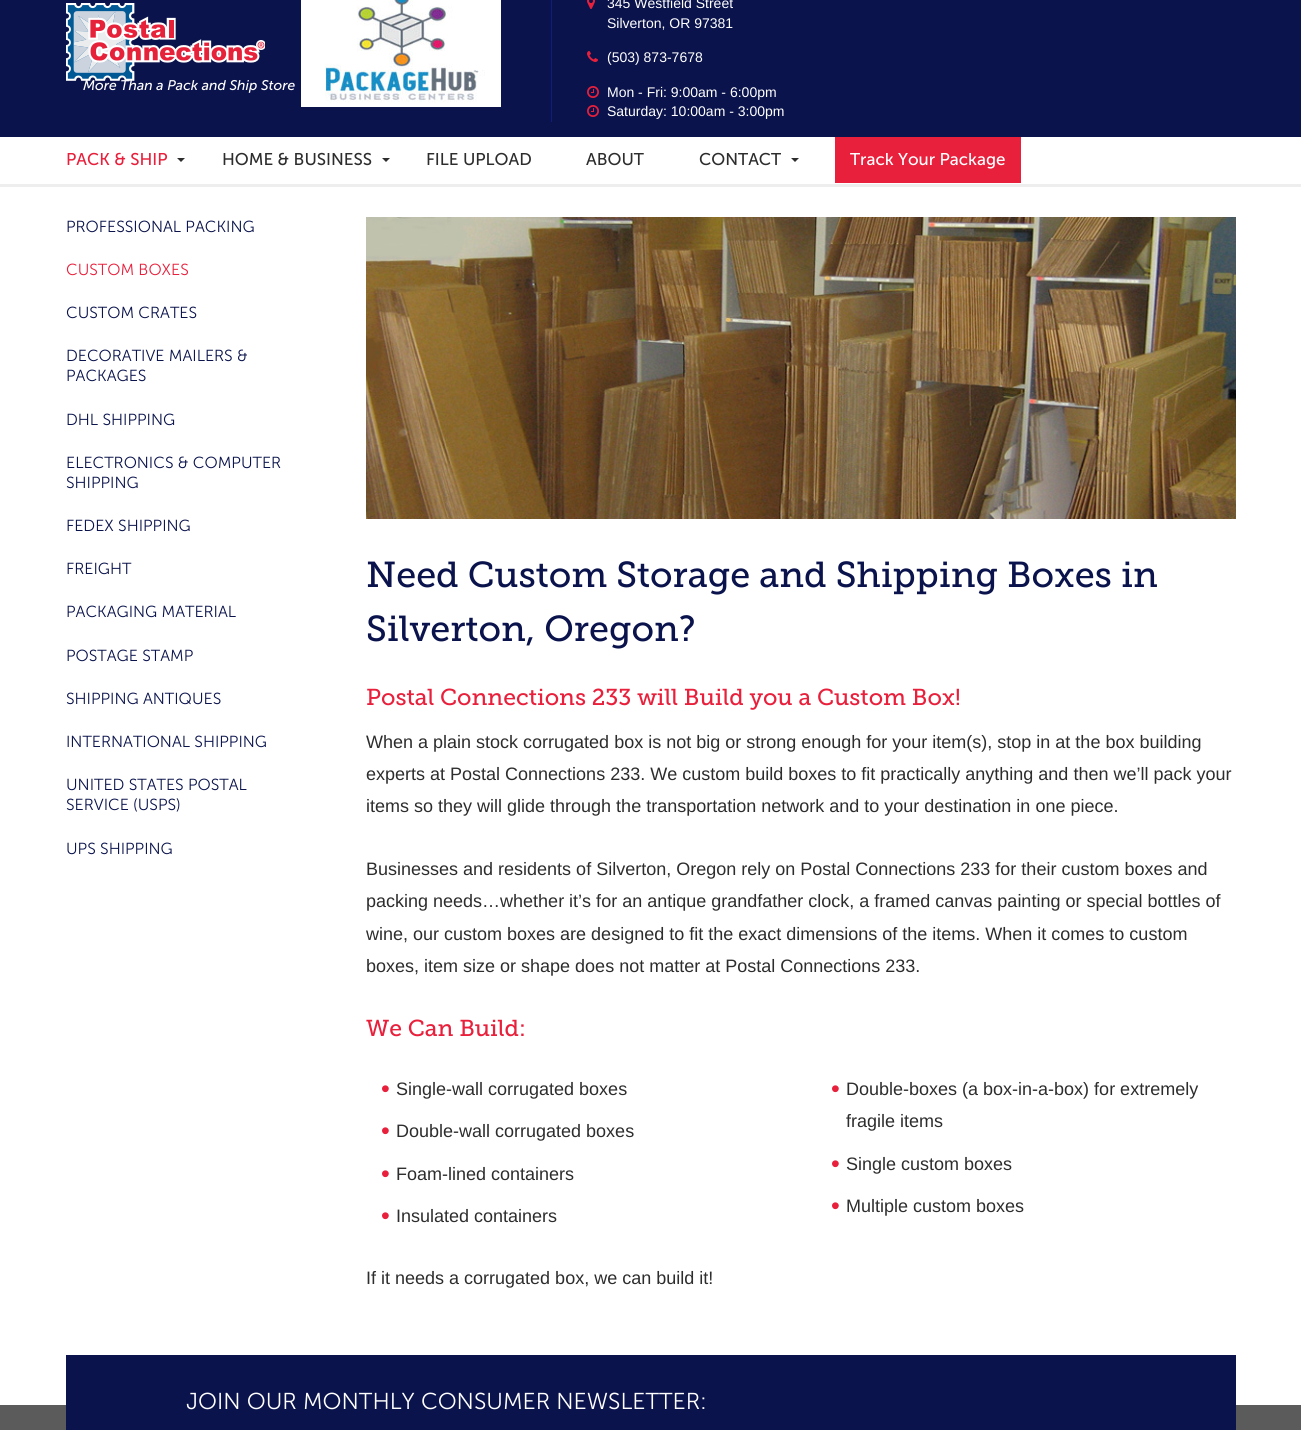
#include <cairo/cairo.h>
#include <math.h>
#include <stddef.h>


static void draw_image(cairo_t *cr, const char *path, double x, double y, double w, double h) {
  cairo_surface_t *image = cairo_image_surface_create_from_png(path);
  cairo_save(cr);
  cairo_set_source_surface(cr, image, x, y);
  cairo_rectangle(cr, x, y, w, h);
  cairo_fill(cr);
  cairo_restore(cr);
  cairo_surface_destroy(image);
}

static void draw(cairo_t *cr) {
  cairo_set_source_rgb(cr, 1, 1, 1);
  cairo_paint(cr);
  cairo_set_source_rgb(cr, 10 / 255.0, 19 / 255.0, 76 / 255.0);
  cairo_rectangle(cr, 0, 0, 1301, 137);
  cairo_fill(cr);
  draw_image(cr, "images/1.png", 66, 3, 199, 78);
  draw_image(cr, "images/2.png", 301, 0, 200, 107);
  cairo_set_source_rgb(cr, 16 / 255.0, 30 / 255.0, 121 / 255.0);
  cairo_rectangle(cr, 551, 0, 1, 122);
  cairo_fill(cr);
  draw_image(cr, "images/3.png", 587, 0, 8, 9);
  draw_image(cr, "images/4.png", 587, 51, 11, 11);
  draw_image(cr, "images/5.png", 587, 86, 12, 12);
  draw_image(cr, "images/5.png", 587, 105, 12, 12);
  cairo_set_source_rgb(cr, 45 / 255.0, 45 / 255.0, 45 / 255.0);
  cairo_new_path(cr);
  cairo_move_to(cr, 177, 158);
  cairo_line_to(cr, 185, 158);
  cairo_line_to(cr, 181, 162);
  cairo_close_path(cr);
  cairo_fill(cr);
  cairo_new_path(cr);
  cairo_move_to(cr, 382, 158);
  cairo_line_to(cr, 390, 158);
  cairo_line_to(cr, 386, 162);
  cairo_close_path(cr);
  cairo_fill(cr);
  cairo_new_path(cr);
  cairo_move_to(cr, 791, 158);
  cairo_line_to(cr, 799, 158);
  cairo_line_to(cr, 795, 162);
  cairo_close_path(cr);
  cairo_fill(cr);
  cairo_set_source_rgb(cr, 232 / 255.0, 32 / 255.0, 60 / 255.0);
  cairo_rectangle(cr, 835, 137, 186, 46);
  cairo_fill(cr);
  cairo_set_source_rgb(cr, 238 / 255.0, 238 / 255.0, 238 / 255.0);
  cairo_rectangle(cr, 0, 184, 1301, 3);
  cairo_fill(cr);
  draw_image(cr, "images/6.png", 366, 217, 870, 302);
  cairo_set_source_rgb(cr, 91 / 255.0, 91 / 255.0, 91 / 255.0);
  cairo_rectangle(cr, 0, 1405, 1301, 25);
  cairo_fill(cr);
  cairo_set_source_rgb(cr, 10 / 255.0, 19 / 255.0, 76 / 255.0);
  cairo_rectangle(cr, 66, 1355, 1170, 75);
  cairo_fill(cr);
  cairo_select_font_face(cr, "Museo Sans", CAIRO_FONT_SLANT_ITALIC, CAIRO_FONT_WEIGHT_NORMAL);
  cairo_set_font_size(cr, 14);
  cairo_set_source_rgb(cr, 1, 1, 1);
  cairo_move_to(cr, 83, 90);
  cairo_show_text(cr, "More Than a Pack and Ship Store");
  cairo_select_font_face(cr, "Liberation Sans", CAIRO_FONT_SLANT_NORMAL, CAIRO_FONT_WEIGHT_NORMAL);
  cairo_move_to(cr, 607, 8);
  cairo_show_text(cr, "345 Westfield Street");
  cairo_move_to(cr, 607, 28);
  cairo_show_text(cr, "Silverton, OR 97381");
  cairo_move_to(cr, 607, 62);
  cairo_show_text(cr, "(503) 873-7678");
  cairo_move_to(cr, 607, 97);
  cairo_show_text(cr, "Mon - Fri: 9:00am - 6:00pm");
  cairo_move_to(cr, 607, 116);
  cairo_show_text(cr, "Saturday: 10:00am - 3:00pm");
  cairo_select_font_face(cr, "Museo Sans", CAIRO_FONT_SLANT_NORMAL, CAIRO_FONT_WEIGHT_NORMAL);
  cairo_set_font_size(cr, 17);
  cairo_set_source_rgb(cr, 232 / 255.0, 32 / 255.0, 60 / 255.0);
  cairo_move_to(cr, 66, 165);
  cairo_show_text(cr, "PACK & SHIP");
  cairo_set_source_rgb(cr, 45 / 255.0, 45 / 255.0, 45 / 255.0);
  cairo_move_to(cr, 222, 165);
  cairo_show_text(cr, "HOME & BUSINESS");
  cairo_move_to(cr, 426, 165);
  cairo_show_text(cr, "FILE UPLOAD");
  cairo_move_to(cr, 586, 165);
  cairo_show_text(cr, "ABOUT");
  cairo_move_to(cr, 699, 165);
  cairo_show_text(cr, "CONTACT");
  cairo_set_source_rgb(cr, 1, 1, 1);
  cairo_move_to(cr, 850, 165);
  cairo_show_text(cr, "Track Your Package");
  cairo_select_font_face(cr, "Museo Sans Light", CAIRO_FONT_SLANT_NORMAL, CAIRO_FONT_WEIGHT_NORMAL);
  cairo_set_font_size(cr, 16);
  cairo_set_source_rgb(cr, 10 / 255.0, 19 / 255.0, 76 / 255.0);
  cairo_move_to(cr, 66, 232);
  cairo_show_text(cr, "PROFESSIONAL PACKING");
  cairo_set_source_rgb(cr, 232 / 255.0, 32 / 255.0, 60 / 255.0);
  cairo_move_to(cr, 66, 275);
  cairo_show_text(cr, "CUSTOM BOXES");
  cairo_set_source_rgb(cr, 10 / 255.0, 19 / 255.0, 76 / 255.0);
  cairo_move_to(cr, 66, 318);
  cairo_show_text(cr, "CUSTOM CRATES");
  cairo_move_to(cr, 66, 361);
  cairo_show_text(cr, "DECORATIVE MAILERS &");
  cairo_move_to(cr, 66, 381);
  cairo_show_text(cr, "PACKAGES");
  cairo_move_to(cr, 66, 425);
  cairo_show_text(cr, "DHL SHIPPING");
  cairo_move_to(cr, 66, 468);
  cairo_show_text(cr, "ELECTRONICS & COMPUTER");
  cairo_move_to(cr, 66, 488);
  cairo_show_text(cr, "SHIPPING");
  cairo_move_to(cr, 66, 531);
  cairo_show_text(cr, "FEDEX SHIPPING");
  cairo_move_to(cr, 66, 574);
  cairo_show_text(cr, "FREIGHT");
  cairo_move_to(cr, 66, 617);
  cairo_show_text(cr, "PACKAGING MATERIAL");
  cairo_move_to(cr, 66, 661);
  cairo_show_text(cr, "POSTAGE STAMP");
  cairo_move_to(cr, 66, 704);
  cairo_show_text(cr, "SHIPPING ANTIQUES");
  cairo_move_to(cr, 66, 747);
  cairo_show_text(cr, "INTERNATIONAL SHIPPING");
  cairo_move_to(cr, 66, 790);
  cairo_show_text(cr, "UNITED STATES POSTAL");
  cairo_move_to(cr, 66, 810);
  cairo_show_text(cr, "SERVICE (USPS)");
  cairo_move_to(cr, 66, 854);
  cairo_show_text(cr, "UPS SHIPPING");
  cairo_select_font_face(cr, "Museo Slab", CAIRO_FONT_SLANT_NORMAL, CAIRO_FONT_WEIGHT_NORMAL);
  cairo_set_font_size(cr, 36);
  cairo_move_to(cr, 366, 587);
  cairo_show_text(cr, "Need Custom Storage and Shipping Boxes in");
  cairo_move_to(cr, 366, 641);
  cairo_show_text(cr, "Silverton, Oregon?");
  cairo_set_font_size(cr, 23);
  cairo_set_source_rgb(cr, 232 / 255.0, 32 / 255.0, 60 / 255.0);
  cairo_move_to(cr, 366, 705);
  cairo_show_text(cr, "Postal Connections 233 will Build you a Custom Box!");
  cairo_select_font_face(cr, "Liberation Sans", CAIRO_FONT_SLANT_NORMAL, CAIRO_FONT_WEIGHT_NORMAL);
  cairo_set_font_size(cr, 18);
  cairo_set_source_rgb(cr, 45 / 255.0, 45 / 255.0, 45 / 255.0);
  cairo_move_to(cr, 366, 748);
  cairo_show_text(cr, "When a plain stock corrugated box is not big or strong enough for your item(s), stop in at the box building");
  cairo_move_to(cr, 366, 780);
  cairo_show_text(cr, "experts at Postal Connections 233. We custom build boxes to fit practically anything and then we’ll pack your");
  cairo_move_to(cr, 366, 812);
  cairo_show_text(cr, "items so they will glide through the transportation network and to your destination in one piece.");
  cairo_move_to(cr, 366, 875);
  cairo_show_text(cr, "Businesses and residents of Silverton, Oregon rely on Postal Connections 233 for their custom boxes and");
  cairo_move_to(cr, 366, 907);
  cairo_show_text(cr, "packing needs…whether it’s for an antique grandfather clock, a framed canvas painting or special bottles of");
  cairo_move_to(cr, 366, 940);
  cairo_show_text(cr, "wine, our custom boxes are designed to fit the exact dimensions of the items. When it comes to custom");
  cairo_move_to(cr, 366, 972);
  cairo_show_text(cr, "boxes, item size or shape does not matter at Postal Connections 233.");
  cairo_select_font_face(cr, "Museo Slab", CAIRO_FONT_SLANT_NORMAL, CAIRO_FONT_WEIGHT_NORMAL);
  cairo_set_font_size(cr, 23);
  cairo_set_source_rgb(cr, 232 / 255.0, 32 / 255.0, 60 / 255.0);
  cairo_move_to(cr, 366, 1036);
  cairo_show_text(cr, "We Can Build:");
  cairo_select_font_face(cr, "Liberation Sans", CAIRO_FONT_SLANT_NORMAL, CAIRO_FONT_WEIGHT_NORMAL);
  cairo_set_font_size(cr, 25);
  cairo_move_to(cr, 381, 1097);
  cairo_show_text(cr, "•");
  cairo_set_font_size(cr, 18);
  cairo_set_source_rgb(cr, 45 / 255.0, 45 / 255.0, 45 / 255.0);
  cairo_move_to(cr, 396, 1095);
  cairo_show_text(cr, "Single-wall corrugated boxes");
  cairo_set_font_size(cr, 25);
  cairo_set_source_rgb(cr, 232 / 255.0, 32 / 255.0, 60 / 255.0);
  cairo_move_to(cr, 381, 1139);
  cairo_show_text(cr, "•");
  cairo_set_font_size(cr, 18);
  cairo_set_source_rgb(cr, 45 / 255.0, 45 / 255.0, 45 / 255.0);
  cairo_move_to(cr, 396, 1137);
  cairo_show_text(cr, "Double-wall corrugated boxes");
  cairo_set_font_size(cr, 25);
  cairo_set_source_rgb(cr, 232 / 255.0, 32 / 255.0, 60 / 255.0);
  cairo_move_to(cr, 381, 1182);
  cairo_show_text(cr, "•");
  cairo_set_font_size(cr, 18);
  cairo_set_source_rgb(cr, 45 / 255.0, 45 / 255.0, 45 / 255.0);
  cairo_move_to(cr, 396, 1180);
  cairo_show_text(cr, "Foam-lined containers");
  cairo_set_font_size(cr, 25);
  cairo_set_source_rgb(cr, 232 / 255.0, 32 / 255.0, 60 / 255.0);
  cairo_move_to(cr, 381, 1224);
  cairo_show_text(cr, "•");
  cairo_set_font_size(cr, 18);
  cairo_set_source_rgb(cr, 45 / 255.0, 45 / 255.0, 45 / 255.0);
  cairo_move_to(cr, 396, 1222);
  cairo_show_text(cr, "Insulated containers");
  cairo_set_font_size(cr, 25);
  cairo_set_source_rgb(cr, 232 / 255.0, 32 / 255.0, 60 / 255.0);
  cairo_move_to(cr, 831, 1097);
  cairo_show_text(cr, "•");
  cairo_set_font_size(cr, 18);
  cairo_set_source_rgb(cr, 45 / 255.0, 45 / 255.0, 45 / 255.0);
  cairo_move_to(cr, 846, 1095);
  cairo_show_text(cr, "Double-boxes (a box-in-a-box) for extremely");
  cairo_move_to(cr, 846, 1127);
  cairo_show_text(cr, "fragile items");
  cairo_set_font_size(cr, 25);
  cairo_set_source_rgb(cr, 232 / 255.0, 32 / 255.0, 60 / 255.0);
  cairo_move_to(cr, 831, 1172);
  cairo_show_text(cr, "•");
  cairo_set_font_size(cr, 18);
  cairo_set_source_rgb(cr, 45 / 255.0, 45 / 255.0, 45 / 255.0);
  cairo_move_to(cr, 846, 1170);
  cairo_show_text(cr, "Single custom boxes");
  cairo_set_font_size(cr, 25);
  cairo_set_source_rgb(cr, 232 / 255.0, 32 / 255.0, 60 / 255.0);
  cairo_move_to(cr, 831, 1214);
  cairo_show_text(cr, "•");
  cairo_set_font_size(cr, 18);
  cairo_set_source_rgb(cr, 45 / 255.0, 45 / 255.0, 45 / 255.0);
  cairo_move_to(cr, 846, 1212);
  cairo_show_text(cr, "Multiple custom boxes");
  cairo_move_to(cr, 366, 1284);
  cairo_show_text(cr, "If it needs a corrugated box, we can build it!");
  cairo_select_font_face(cr, "Museo Sans Light", CAIRO_FONT_SLANT_NORMAL, CAIRO_FONT_WEIGHT_NORMAL);
  cairo_set_font_size(cr, 23);
  cairo_set_source_rgb(cr, 1, 1, 1);
  cairo_move_to(cr, 186, 1409);
  cairo_show_text(cr, "JOIN OUR MONTHLY CONSUMER NEWSLETTER:");
}

int main(void) {
  cairo_surface_t *surface = cairo_image_surface_create(CAIRO_FORMAT_RGB24, 1301, 1430);
  cairo_t *cr = cairo_create(surface);
  cairo_font_options_t *options = cairo_font_options_create();
  cairo_font_options_set_hint_metrics(options, CAIRO_HINT_METRICS_OFF);
  cairo_font_options_set_hint_style(options, CAIRO_HINT_STYLE_NONE);
  cairo_set_font_options(cr, options);
  cairo_set_miter_limit(cr, 4);
  draw(cr);
  cairo_surface_write_to_png(surface, "out.png");
  cairo_font_options_destroy(options);
  cairo_destroy(cr);
  cairo_surface_destroy(surface);
  return 0;
}
